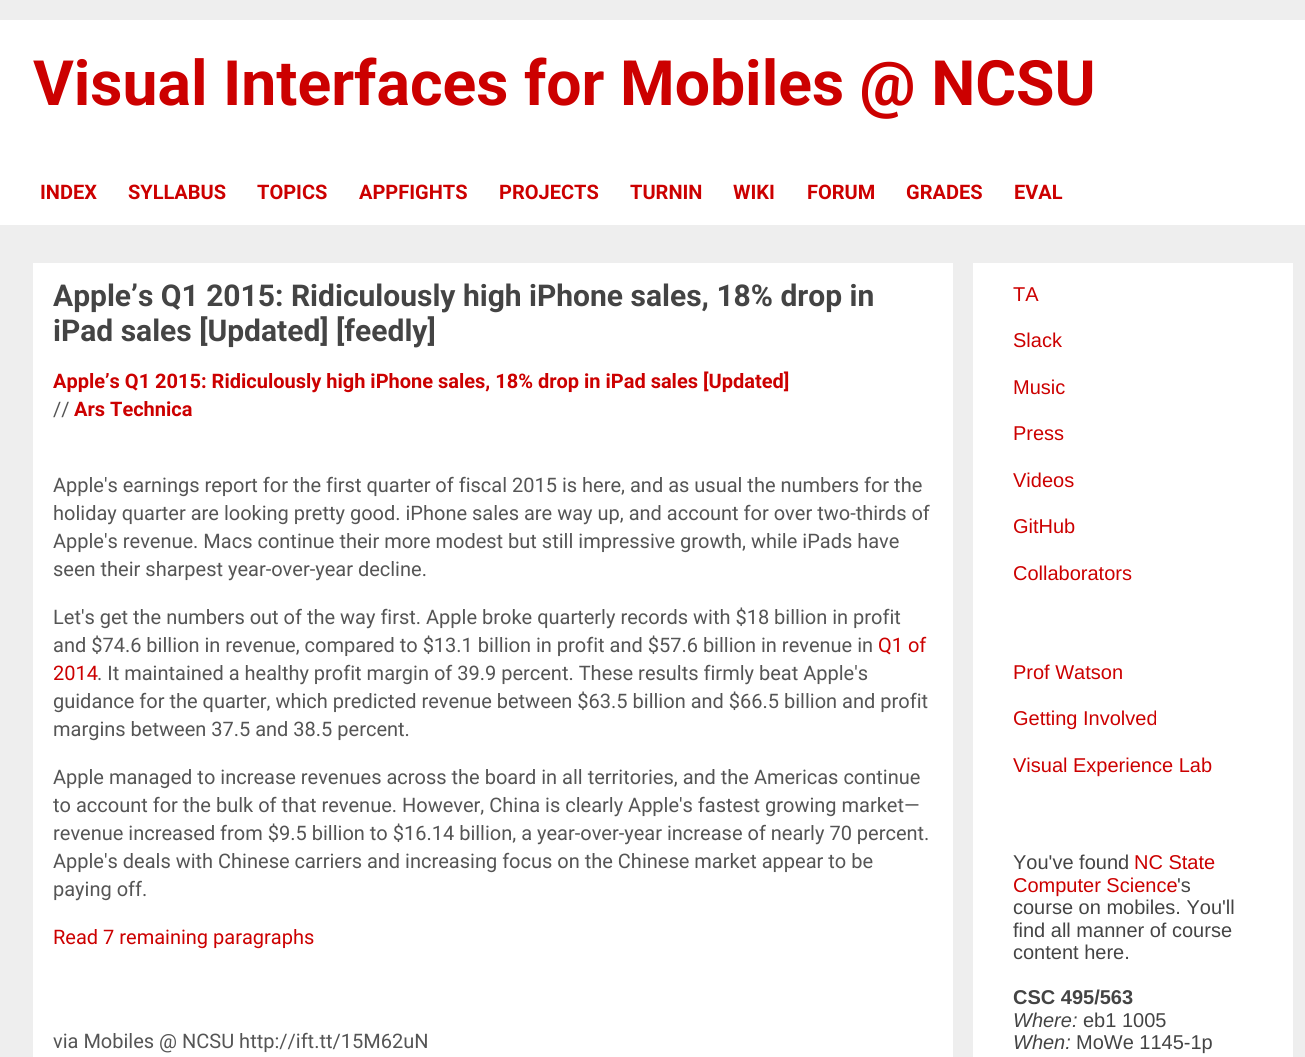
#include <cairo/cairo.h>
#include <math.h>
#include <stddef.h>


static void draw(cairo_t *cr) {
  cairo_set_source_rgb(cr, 238 / 255.0, 238 / 255.0, 238 / 255.0);
  cairo_paint(cr);
  cairo_set_source_rgb(cr, 1, 1, 1);
  cairo_rectangle(cr, 0, 20, 1305, 205);
  cairo_fill(cr);
  cairo_rectangle(cr, 33, 263, 920, 794);
  cairo_fill(cr);
  cairo_rectangle(cr, 973, 263, 320, 794);
  cairo_fill(cr);
  cairo_select_font_face(cr, "Roboto", CAIRO_FONT_SLANT_NORMAL, CAIRO_FONT_WEIGHT_BOLD);
  cairo_set_font_size(cr, 62.5);
  cairo_set_source_rgb(cr, 204 / 255.0, 0, 0);
  cairo_move_to(cr, 33, 105);
  cairo_show_text(cr, "Visual Interfaces for Mobiles @ NCSU");
  cairo_set_font_size(cr, 20);
  cairo_move_to(cr, 40, 199);
  cairo_show_text(cr, "INDEX");
  cairo_move_to(cr, 128, 199);
  cairo_show_text(cr, "SYLLABUS");
  cairo_move_to(cr, 257, 199);
  cairo_show_text(cr, "TOPICS");
  cairo_move_to(cr, 359, 199);
  cairo_show_text(cr, "APPFIGHTS");
  cairo_move_to(cr, 499, 199);
  cairo_show_text(cr, "PROJECTS");
  cairo_move_to(cr, 630, 199);
  cairo_show_text(cr, "TURNIN");
  cairo_move_to(cr, 733, 199);
  cairo_show_text(cr, "WIKI");
  cairo_move_to(cr, 807, 199);
  cairo_show_text(cr, "FORUM");
  cairo_move_to(cr, 906, 199);
  cairo_show_text(cr, "GRADES");
  cairo_move_to(cr, 1014, 199);
  cairo_show_text(cr, "EVAL");
  cairo_set_font_size(cr, 30);
  cairo_set_source_rgb(cr, 68 / 255.0, 68 / 255.0, 68 / 255.0);
  cairo_move_to(cr, 53, 306);
  cairo_show_text(cr, "Apple’s Q1 2015: Ridiculously high iPhone sales, 18% drop in");
  cairo_move_to(cr, 53, 341);
  cairo_show_text(cr, "iPad sales [Updated] [feedly]");
  cairo_set_font_size(cr, 20);
  cairo_set_source_rgb(cr, 204 / 255.0, 0, 0);
  cairo_move_to(cr, 53, 388);
  cairo_show_text(cr, "Apple’s Q1 2015: Ridiculously high iPhone sales, 18% drop in iPad sales [Updated]");
  cairo_select_font_face(cr, "Roboto", CAIRO_FONT_SLANT_NORMAL, CAIRO_FONT_WEIGHT_NORMAL);
  cairo_set_source_rgb(cr, 85 / 255.0, 85 / 255.0, 85 / 255.0);
  cairo_move_to(cr, 53, 416);
  cairo_show_text(cr, "//");
  cairo_select_font_face(cr, "Roboto", CAIRO_FONT_SLANT_NORMAL, CAIRO_FONT_WEIGHT_BOLD);
  cairo_set_source_rgb(cr, 204 / 255.0, 0, 0);
  cairo_move_to(cr, 74, 416);
  cairo_show_text(cr, "Ars Technica");
  cairo_select_font_face(cr, "Roboto", CAIRO_FONT_SLANT_NORMAL, CAIRO_FONT_WEIGHT_NORMAL);
  cairo_set_source_rgb(cr, 85 / 255.0, 85 / 255.0, 85 / 255.0);
  cairo_move_to(cr, 53, 492);
  cairo_show_text(cr, "Apple's earnings report for the first quarter of fiscal 2015 is here, and as usual the numbers for the");
  cairo_move_to(cr, 53, 520);
  cairo_show_text(cr, "holiday quarter are looking pretty good. iPhone sales are way up, and account for over two-thirds of");
  cairo_move_to(cr, 53, 548);
  cairo_show_text(cr, "Apple's revenue. Macs continue their more modest but still impressive growth, while iPads have");
  cairo_move_to(cr, 53, 576);
  cairo_show_text(cr, "seen their sharpest year-over-year decline.");
  cairo_move_to(cr, 53, 624);
  cairo_show_text(cr, "Let's get the numbers out of the way first. Apple broke quarterly records with $18 billion in profit");
  cairo_move_to(cr, 53, 652);
  cairo_show_text(cr, "and $74.6 billion in revenue, compared to $13.1 billion in profit and $57.6 billion in revenue in");
  cairo_set_source_rgb(cr, 204 / 255.0, 0, 0);
  cairo_move_to(cr, 878, 652);
  cairo_show_text(cr, "Q1 of");
  cairo_move_to(cr, 53, 680);
  cairo_show_text(cr, "2014");
  cairo_set_source_rgb(cr, 85 / 255.0, 85 / 255.0, 85 / 255.0);
  cairo_move_to(cr, 97, 680);
  cairo_show_text(cr, ". It maintained a healthy profit margin of 39.9 percent. These results firmly beat Apple's");
  cairo_move_to(cr, 53, 708);
  cairo_show_text(cr, "guidance for the quarter, which predicted revenue between $63.5 billion and $66.5 billion and profit");
  cairo_move_to(cr, 53, 736);
  cairo_show_text(cr, "margins between 37.5 and 38.5 percent.");
  cairo_move_to(cr, 53, 784);
  cairo_show_text(cr, "Apple managed to increase revenues across the board in all territories, and the Americas continue");
  cairo_move_to(cr, 53, 812);
  cairo_show_text(cr, "to account for the bulk of that revenue. However, China is clearly Apple's fastest growing market—");
  cairo_move_to(cr, 53, 840);
  cairo_show_text(cr, "revenue increased from $9.5 billion to $16.14 billion, a year-over-year increase of nearly 70 percent.");
  cairo_move_to(cr, 53, 868);
  cairo_show_text(cr, "Apple's deals with Chinese carriers and increasing focus on the Chinese market appear to be");
  cairo_move_to(cr, 53, 896);
  cairo_show_text(cr, "paying off.");
  cairo_set_source_rgb(cr, 204 / 255.0, 0, 0);
  cairo_move_to(cr, 53, 944);
  cairo_show_text(cr, "Read 7 remaining paragraphs");
  cairo_set_source_rgb(cr, 85 / 255.0, 85 / 255.0, 85 / 255.0);
  cairo_move_to(cr, 53, 1048);
  cairo_show_text(cr, "via Mobiles @ NCSU http://ift.tt/15M62uN");
  cairo_select_font_face(cr, "Liberation Sans", CAIRO_FONT_SLANT_NORMAL, CAIRO_FONT_WEIGHT_NORMAL);
  cairo_set_source_rgb(cr, 204 / 255.0, 0, 0);
  cairo_move_to(cr, 1013, 301);
  cairo_show_text(cr, "TA");
  cairo_move_to(cr, 1013, 347);
  cairo_show_text(cr, "Slack");
  cairo_move_to(cr, 1013, 394);
  cairo_show_text(cr, "Music");
  cairo_move_to(cr, 1013, 440);
  cairo_show_text(cr, "Press");
  cairo_move_to(cr, 1013, 487);
  cairo_show_text(cr, "Videos");
  cairo_move_to(cr, 1013, 533);
  cairo_show_text(cr, "GitHub");
  cairo_move_to(cr, 1013, 580);
  cairo_show_text(cr, "Collaborators");
  cairo_move_to(cr, 1013, 679);
  cairo_show_text(cr, "Prof Watson");
  cairo_move_to(cr, 1013, 725);
  cairo_show_text(cr, "Getting Involved");
  cairo_move_to(cr, 1013, 772);
  cairo_show_text(cr, "Visual Experience Lab");
  cairo_set_source_rgb(cr, 68 / 255.0, 68 / 255.0, 68 / 255.0);
  cairo_move_to(cr, 1013, 869);
  cairo_show_text(cr, "You've found");
  cairo_set_source_rgb(cr, 204 / 255.0, 0, 0);
  cairo_move_to(cr, 1134, 869);
  cairo_show_text(cr, "NC State");
  cairo_move_to(cr, 1013, 892);
  cairo_show_text(cr, "Computer Science");
  cairo_set_source_rgb(cr, 68 / 255.0, 68 / 255.0, 68 / 255.0);
  cairo_move_to(cr, 1177, 892);
  cairo_show_text(cr, "'s");
  cairo_move_to(cr, 1013, 914);
  cairo_show_text(cr, "course on mobiles. You'll");
  cairo_move_to(cr, 1013, 937);
  cairo_show_text(cr, "find all manner of course");
  cairo_move_to(cr, 1013, 959);
  cairo_show_text(cr, "content here.");
  cairo_select_font_face(cr, "Liberation Sans", CAIRO_FONT_SLANT_NORMAL, CAIRO_FONT_WEIGHT_BOLD);
  cairo_move_to(cr, 1013, 1004);
  cairo_show_text(cr, "CSC 495/563");
  cairo_select_font_face(cr, "Liberation Sans", CAIRO_FONT_SLANT_ITALIC, CAIRO_FONT_WEIGHT_NORMAL);
  cairo_move_to(cr, 1013, 1027);
  cairo_show_text(cr, "Where:");
  cairo_select_font_face(cr, "Liberation Sans", CAIRO_FONT_SLANT_NORMAL, CAIRO_FONT_WEIGHT_NORMAL);
  cairo_move_to(cr, 1083, 1027);
  cairo_show_text(cr, "eb1 1005");
  cairo_select_font_face(cr, "Liberation Sans", CAIRO_FONT_SLANT_ITALIC, CAIRO_FONT_WEIGHT_NORMAL);
  cairo_move_to(cr, 1013, 1049);
  cairo_show_text(cr, "When:");
  cairo_select_font_face(cr, "Liberation Sans", CAIRO_FONT_SLANT_NORMAL, CAIRO_FONT_WEIGHT_NORMAL);
  cairo_move_to(cr, 1076, 1049);
  cairo_show_text(cr, "MoWe 1145-1p");
}

int main(void) {
  cairo_surface_t *surface = cairo_image_surface_create(CAIRO_FORMAT_RGB24, 1305, 1057);
  cairo_t *cr = cairo_create(surface);
  cairo_font_options_t *options = cairo_font_options_create();
  cairo_font_options_set_hint_metrics(options, CAIRO_HINT_METRICS_OFF);
  cairo_font_options_set_hint_style(options, CAIRO_HINT_STYLE_NONE);
  cairo_set_font_options(cr, options);
  cairo_set_miter_limit(cr, 4);
  draw(cr);
  cairo_surface_write_to_png(surface, "out.png");
  cairo_font_options_destroy(options);
  cairo_destroy(cr);
  cairo_surface_destroy(surface);
  return 0;
}
